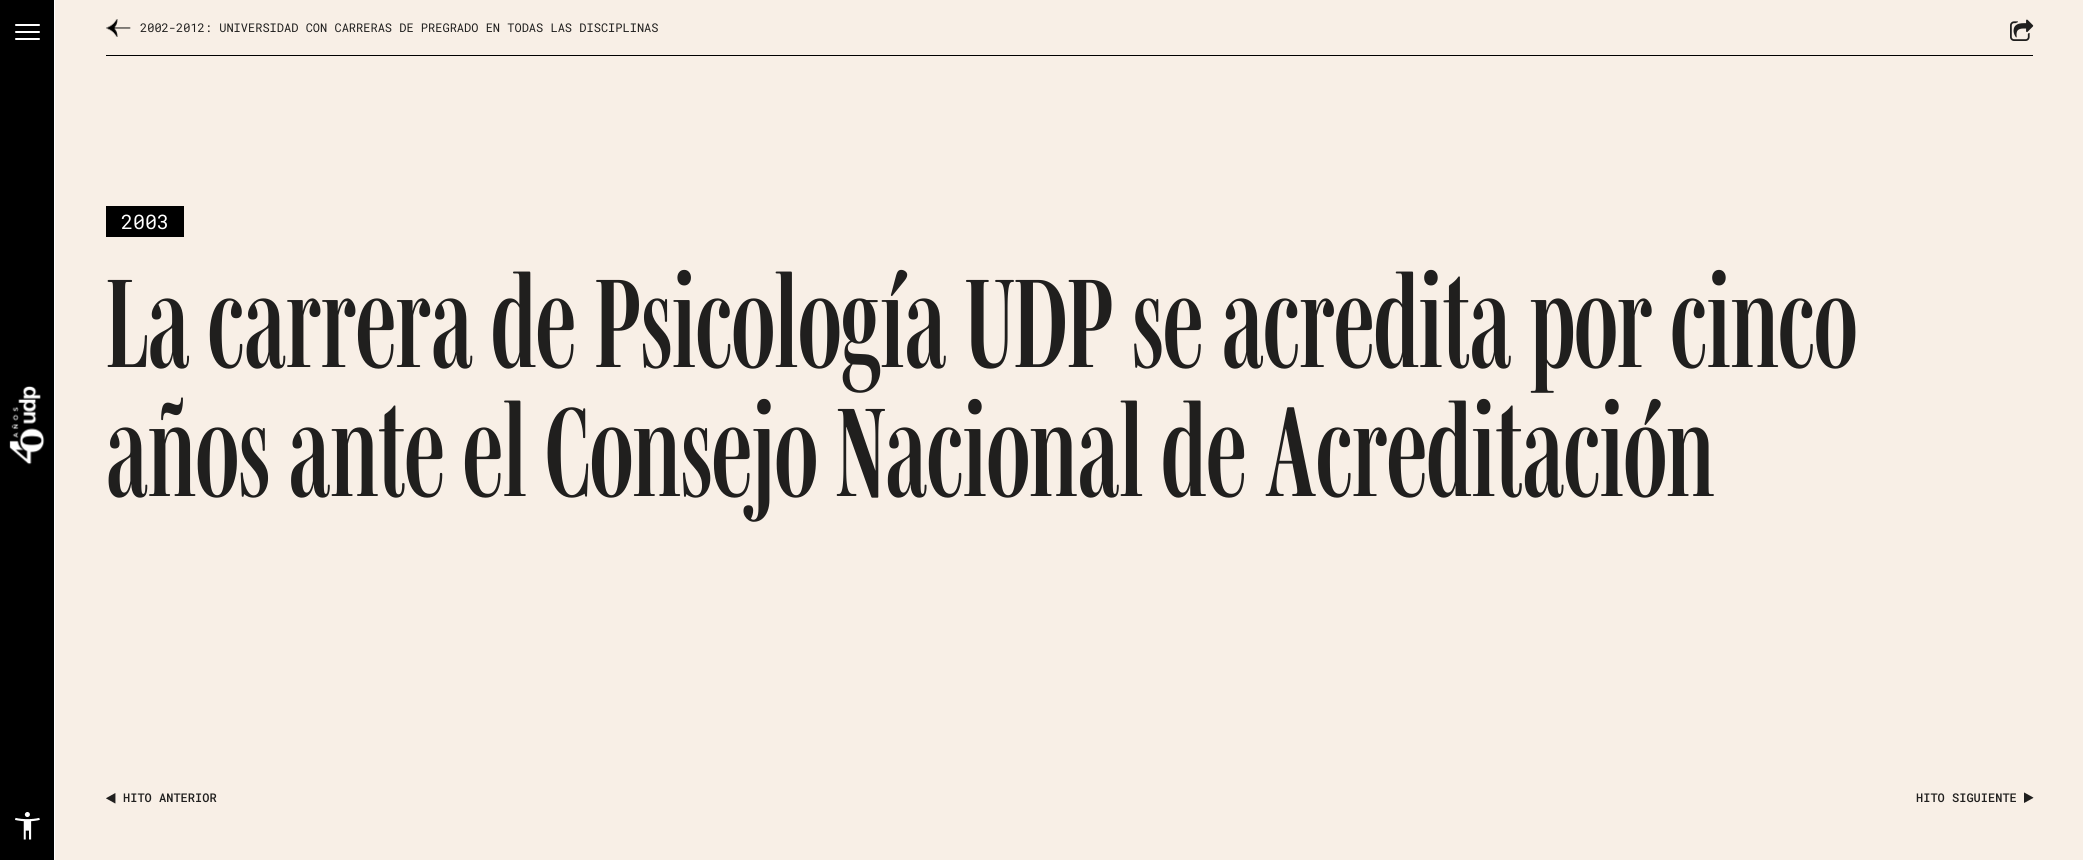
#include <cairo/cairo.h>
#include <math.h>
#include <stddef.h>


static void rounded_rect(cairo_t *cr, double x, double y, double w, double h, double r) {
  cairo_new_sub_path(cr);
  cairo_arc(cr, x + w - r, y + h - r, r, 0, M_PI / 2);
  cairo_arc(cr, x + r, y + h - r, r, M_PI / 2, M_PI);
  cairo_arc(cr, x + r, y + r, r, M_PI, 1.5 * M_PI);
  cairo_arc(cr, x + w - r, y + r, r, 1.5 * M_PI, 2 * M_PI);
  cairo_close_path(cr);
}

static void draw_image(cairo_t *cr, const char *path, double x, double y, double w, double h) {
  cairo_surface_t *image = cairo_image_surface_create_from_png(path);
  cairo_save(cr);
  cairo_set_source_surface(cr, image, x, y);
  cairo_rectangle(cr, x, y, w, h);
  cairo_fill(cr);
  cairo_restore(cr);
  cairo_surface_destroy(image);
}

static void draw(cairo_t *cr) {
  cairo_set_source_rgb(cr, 248 / 255.0, 239 / 255.0, 230 / 255.0);
  cairo_paint(cr);
  cairo_set_source_rgb(cr, 0, 0, 0);
  cairo_rectangle(cr, 0, 0, 54, 860);
  cairo_fill(cr);
  cairo_set_source_rgb(cr, 1, 1, 1);
  cairo_rectangle(cr, 54, 0, 1, 860);
  cairo_fill(cr);
  rounded_rect(cr, 15, 24, 25, 2, 1);
  cairo_fill(cr);
  rounded_rect(cr, 15, 31, 25, 2, 1);
  cairo_fill(cr);
  rounded_rect(cr, 15, 38, 25, 2, 1);
  cairo_fill(cr);
  draw_image(cr, "images/1.png", 9, 386, 36, 79);
  draw_image(cr, "images/2.png", 15, 812, 25, 28);
  cairo_set_source_rgb(cr, 0, 0, 0);
  cairo_rectangle(cr, 106, 55, 1927, 1);
  cairo_fill(cr);
  draw_image(cr, "images/3.png", 106, 19, 25, 18);
  draw_image(cr, "images/4.png", 2010, 19, 24, 22);
  cairo_rectangle(cr, 106, 206, 78, 31);
  cairo_fill(cr);
  draw_image(cr, "images/5.png", 106, 793, 10, 11);
  draw_image(cr, "images/6.png", 2024, 792, 10, 11);
  cairo_select_font_face(cr, "Roboto Mono", CAIRO_FONT_SLANT_NORMAL, CAIRO_FONT_WEIGHT_NORMAL);
  cairo_set_font_size(cr, 12);
  cairo_set_source_rgb(cr, 32 / 255.0, 31 / 255.0, 30 / 255.0);
  cairo_move_to(cr, 140, 32);
  cairo_show_text(cr, "2002-2012: UNIVERSIDAD CON CARRERAS DE PREGRADO EN TODAS LAS DISCIPLINAS");
  cairo_set_font_size(cr, 20);
  cairo_set_source_rgb(cr, 1, 1, 1);
  cairo_move_to(cr, 121, 229);
  cairo_show_text(cr, "2003");
  cairo_select_font_face(cr, "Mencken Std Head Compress", CAIRO_FONT_SLANT_NORMAL, CAIRO_FONT_WEIGHT_BOLD);
  cairo_set_font_size(cr, 129);
  cairo_set_source_rgb(cr, 32 / 255.0, 31 / 255.0, 30 / 255.0);
  cairo_move_to(cr, 106, 367);
  cairo_show_text(cr, "La carrera de Psicología UDP se acredita por cinco");
  cairo_move_to(cr, 106, 496);
  cairo_show_text(cr, "años ante el Consejo Nacional de Acreditación");
  cairo_select_font_face(cr, "Roboto Mono Medium", CAIRO_FONT_SLANT_NORMAL, CAIRO_FONT_WEIGHT_NORMAL);
  cairo_set_font_size(cr, 12);
  cairo_move_to(cr, 123, 802);
  cairo_show_text(cr, "HITO ANTERIOR");
  cairo_move_to(cr, 1916, 802);
  cairo_show_text(cr, "HITO SIGUIENTE");
}

int main(void) {
  cairo_surface_t *surface = cairo_image_surface_create(CAIRO_FORMAT_RGB24, 2083, 860);
  cairo_t *cr = cairo_create(surface);
  cairo_font_options_t *options = cairo_font_options_create();
  cairo_font_options_set_hint_metrics(options, CAIRO_HINT_METRICS_OFF);
  cairo_font_options_set_hint_style(options, CAIRO_HINT_STYLE_NONE);
  cairo_set_font_options(cr, options);
  cairo_set_miter_limit(cr, 4);
  draw(cr);
  cairo_surface_write_to_png(surface, "out.png");
  cairo_font_options_destroy(options);
  cairo_destroy(cr);
  cairo_surface_destroy(surface);
  return 0;
}
